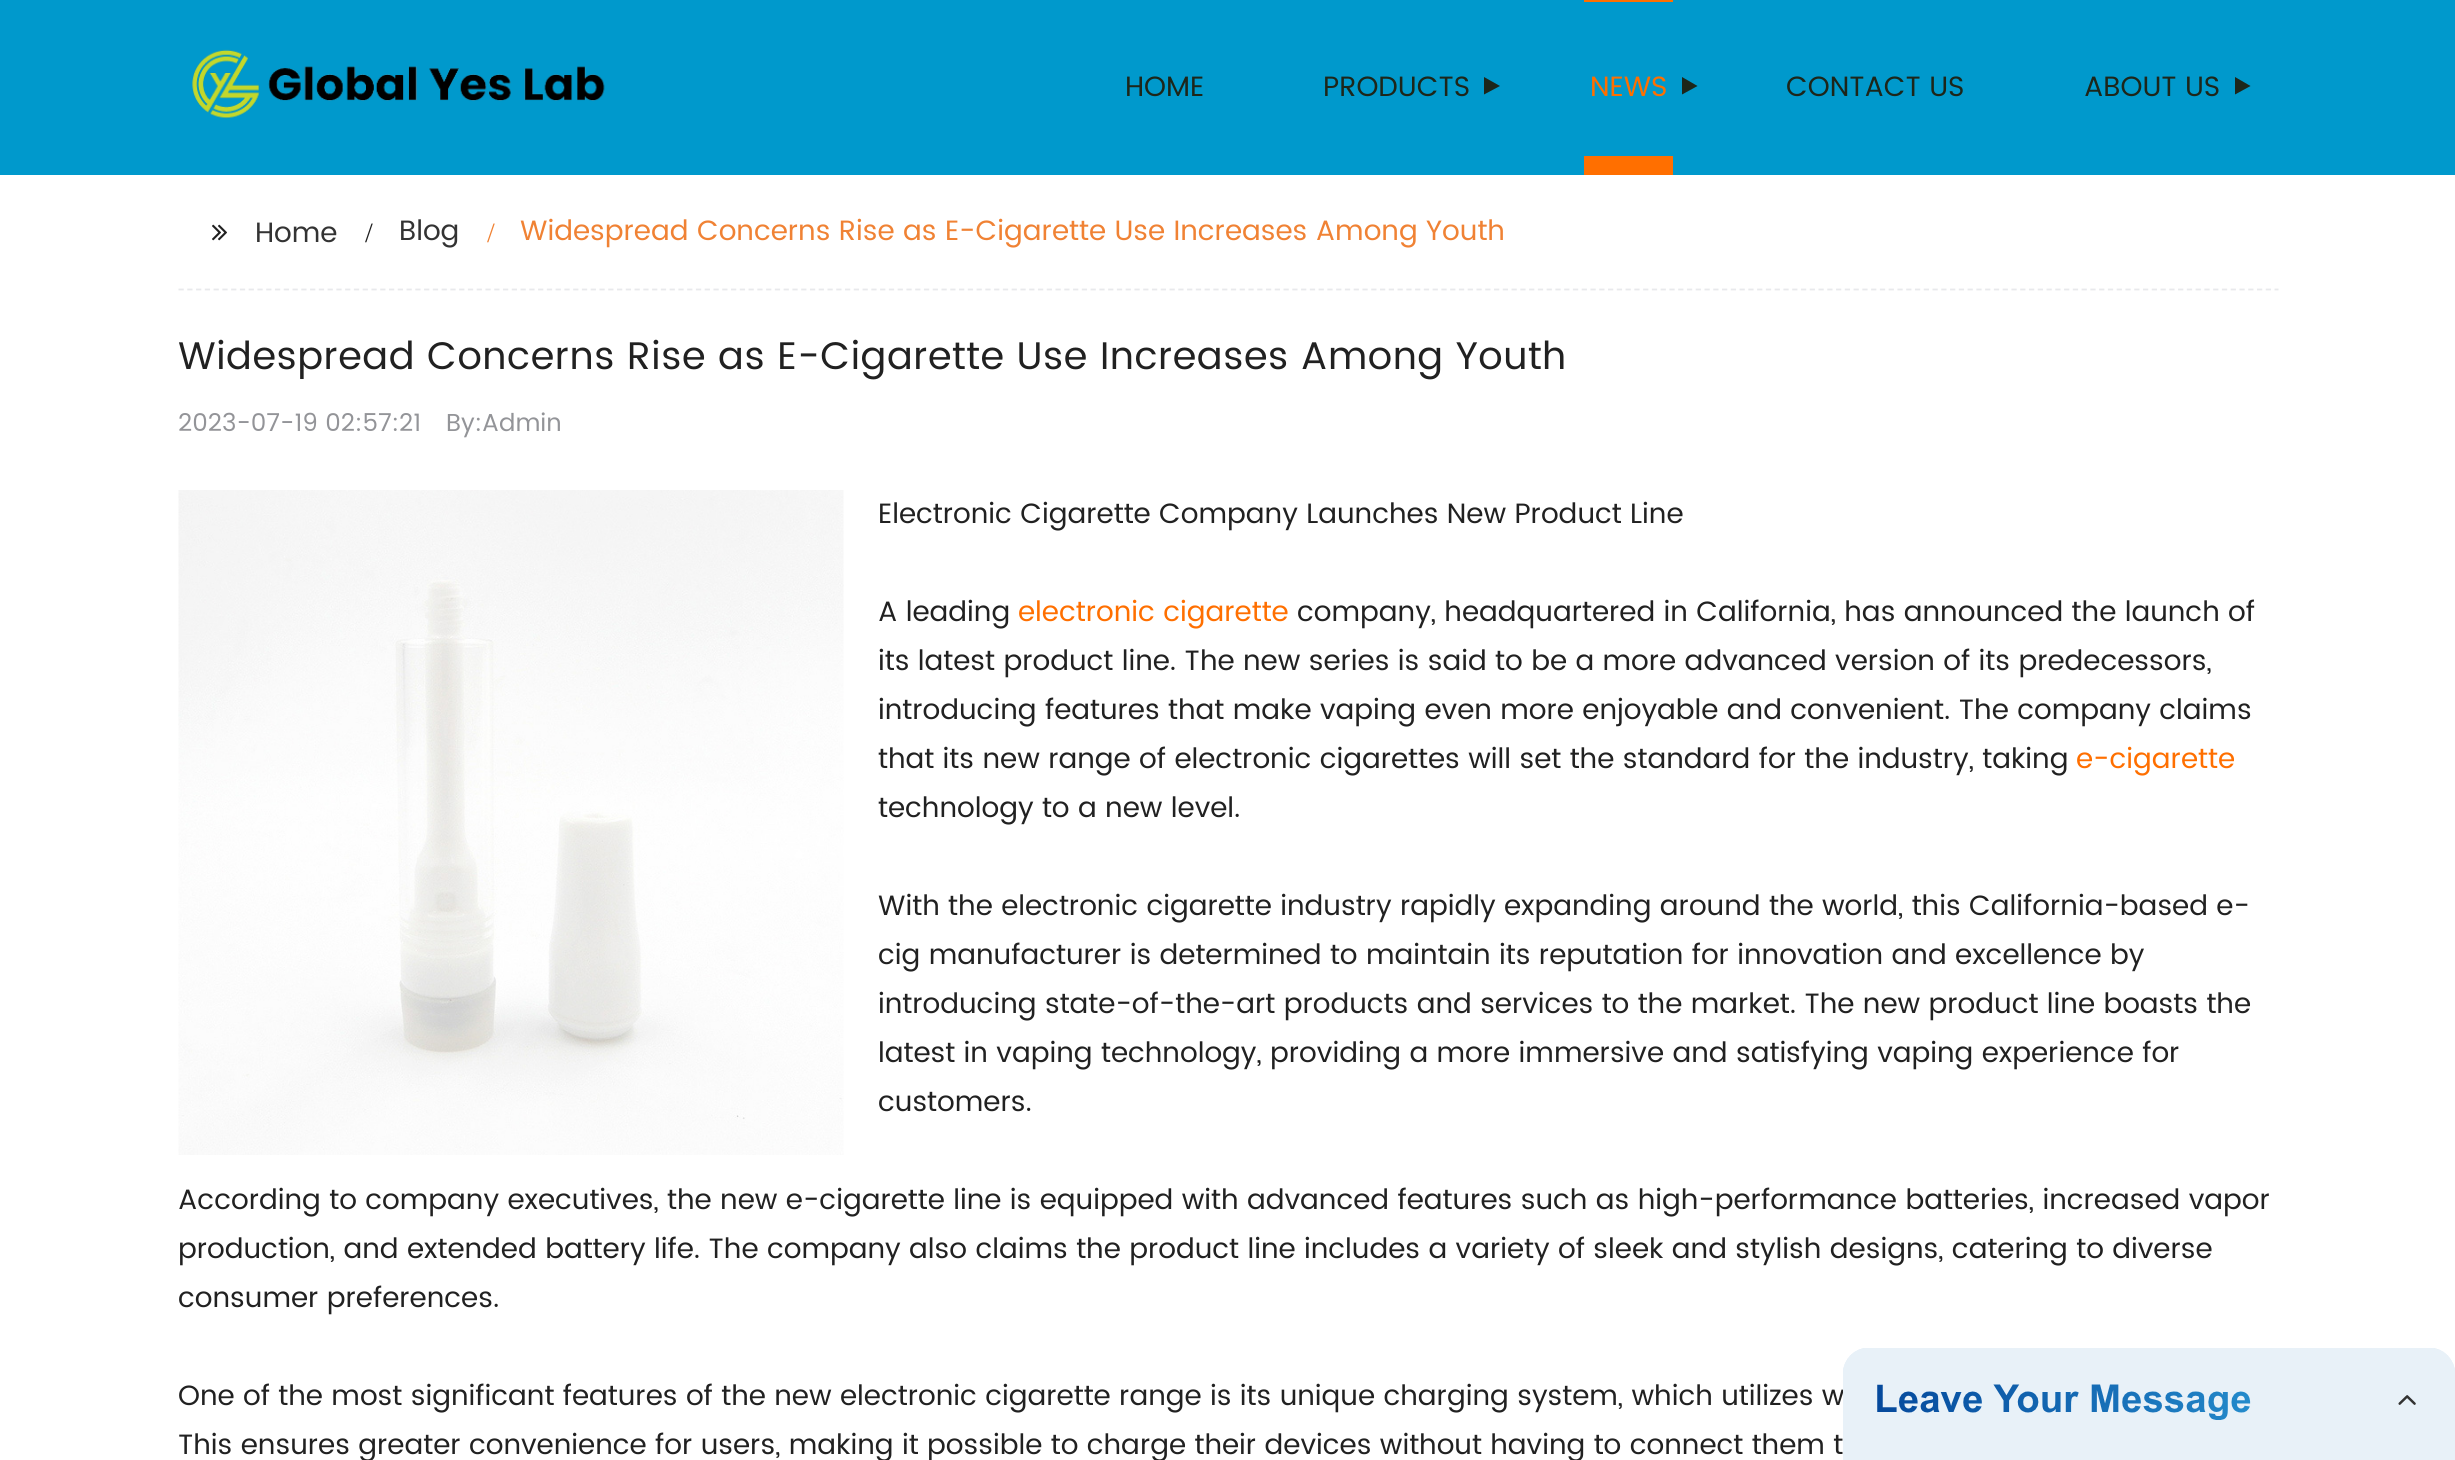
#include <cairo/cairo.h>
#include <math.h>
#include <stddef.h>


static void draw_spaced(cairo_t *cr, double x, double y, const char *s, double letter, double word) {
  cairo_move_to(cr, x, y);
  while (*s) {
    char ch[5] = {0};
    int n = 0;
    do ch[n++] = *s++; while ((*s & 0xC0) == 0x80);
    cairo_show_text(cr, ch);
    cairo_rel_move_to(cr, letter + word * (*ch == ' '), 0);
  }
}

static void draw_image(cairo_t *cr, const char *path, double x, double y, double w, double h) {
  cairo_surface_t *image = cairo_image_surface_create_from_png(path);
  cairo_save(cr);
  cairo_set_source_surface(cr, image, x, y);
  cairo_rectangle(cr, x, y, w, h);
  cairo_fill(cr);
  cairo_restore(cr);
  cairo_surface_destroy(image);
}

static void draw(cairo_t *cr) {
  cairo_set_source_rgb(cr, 0, 153 / 255.0, 204 / 255.0);
  cairo_paint(cr);
  draw_image(cr, "images/1.png", 192, 49, 413, 70);
  cairo_set_source_rgb(cr, 29 / 255.0, 38 / 255.0, 26 / 255.0);
  cairo_new_path(cr);
  cairo_move_to(cr, 1484, 94.5);
  cairo_line_to(cr, 1484, 77);
  cairo_line_to(cr, 1500, 86);
  cairo_close_path(cr);
  cairo_fill(cr);
  cairo_set_source_rgb(cr, 1, 111 / 255.0, 0);
  cairo_rectangle(cr, 1584, 0, 89, 2);
  cairo_fill(cr);
  cairo_set_source_rgb(cr, 29 / 255.0, 38 / 255.0, 26 / 255.0);
  cairo_new_path(cr);
  cairo_move_to(cr, 1682, 94.5);
  cairo_line_to(cr, 1682, 77);
  cairo_line_to(cr, 1697.5, 86);
  cairo_close_path(cr);
  cairo_fill(cr);
  cairo_set_source_rgb(cr, 1, 111 / 255.0, 0);
  cairo_rectangle(cr, 1584, 156, 89, 19);
  cairo_fill(cr);
  cairo_set_source_rgb(cr, 29 / 255.0, 38 / 255.0, 26 / 255.0);
  cairo_new_path(cr);
  cairo_move_to(cr, 2235, 94.5);
  cairo_line_to(cr, 2235, 77);
  cairo_line_to(cr, 2250.5, 86);
  cairo_close_path(cr);
  cairo_fill(cr);
  cairo_set_source_rgb(cr, 1, 1, 1);
  cairo_rectangle(cr, 0, 175, 2455, 1285);
  cairo_fill(cr);
  cairo_new_path(cr);
  cairo_move_to(cr, 178.5, 289.5);
  cairo_line_to(cr, 2278.5, 289.5);
  cairo_set_source_rgb(cr, 232 / 255.0, 233 / 255.0, 236 / 255.0);
  cairo_set_line_width(cr, 1.8);
  cairo_set_dash(cr, (double[]){5.25, 3.52}, 2, 0);
  cairo_stroke(cr);
  draw_image(cr, "images/2.png", 212, 224, 15, 17);
  draw_image(cr, "images/3.png", 178, 490, 666, 665);
  cairo_select_font_face(cr, "Poppins", CAIRO_FONT_SLANT_NORMAL, CAIRO_FONT_WEIGHT_NORMAL);
  cairo_set_font_size(cr, 28);
  cairo_set_source_rgb(cr, 29 / 255.0, 38 / 255.0, 26 / 255.0);
  cairo_move_to(cr, 1125, 96);
  cairo_show_text(cr, "HOME");
  cairo_move_to(cr, 1323, 96);
  cairo_show_text(cr, "PRODUCTS");
  cairo_set_source_rgb(cr, 1, 111 / 255.0, 0);
  cairo_move_to(cr, 1590, 96);
  cairo_show_text(cr, "NEWS");
  cairo_set_source_rgb(cr, 29 / 255.0, 38 / 255.0, 26 / 255.0);
  cairo_move_to(cr, 1786, 96);
  cairo_show_text(cr, "CONTACT US");
  cairo_move_to(cr, 2084, 96);
  cairo_show_text(cr, "ABOUT US");
  cairo_set_source_rgb(cr, 51 / 255.0, 51 / 255.0, 51 / 255.0);
  cairo_move_to(cr, 255, 242);
  cairo_show_text(cr, "Home");
  cairo_select_font_face(cr, "Liberation Serif", CAIRO_FONT_SLANT_NORMAL, CAIRO_FONT_WEIGHT_NORMAL);
  cairo_set_source_rgb(cr, 33 / 255.0, 33 / 255.0, 33 / 255.0);
  cairo_move_to(cr, 365, 242);
  cairo_show_text(cr, "/");
  cairo_select_font_face(cr, "Poppins", CAIRO_FONT_SLANT_NORMAL, CAIRO_FONT_WEIGHT_NORMAL);
  cairo_set_source_rgb(cr, 51 / 255.0, 51 / 255.0, 51 / 255.0);
  cairo_move_to(cr, 399, 240);
  cairo_show_text(cr, "Blog");
  cairo_select_font_face(cr, "Liberation Serif", CAIRO_FONT_SLANT_NORMAL, CAIRO_FONT_WEIGHT_NORMAL);
  cairo_set_source_rgb(cr, 240 / 255.0, 130 / 255.0, 52 / 255.0);
  cairo_move_to(cr, 487, 242);
  cairo_show_text(cr, "/");
  cairo_select_font_face(cr, "Poppins", CAIRO_FONT_SLANT_NORMAL, CAIRO_FONT_WEIGHT_NORMAL);
  cairo_move_to(cr, 520, 240);
  cairo_show_text(cr, "Widespread Concerns Rise as E-Cigarette Use Increases Among Youth");
  cairo_set_font_size(cr, 38.5);
  cairo_set_source_rgb(cr, 33 / 255.0, 33 / 255.0, 33 / 255.0);
  draw_spaced(cr, 178, 369, "Widespread Concerns Rise as E-Cigarette Use Increases Among Youth", 0.53, 0);
  cairo_set_font_size(cr, 24.5);
  cairo_set_source_rgb(cr, 147 / 255.0, 148 / 255.0, 152 / 255.0);
  cairo_move_to(cr, 178, 431);
  cairo_show_text(cr, "2023-07-19 02:57:21");
  cairo_move_to(cr, 446, 431);
  cairo_show_text(cr, "By:Admin");
  cairo_set_font_size(cr, 28);
  cairo_set_source_rgb(cr, 33 / 255.0, 33 / 255.0, 33 / 255.0);
  cairo_move_to(cr, 878, 523);
  cairo_show_text(cr, "Electronic Cigarette Company Launches New Product Line");
  cairo_move_to(cr, 878, 621);
  cairo_show_text(cr, "A leading");
  cairo_set_source_rgb(cr, 1, 111 / 255.0, 0);
  cairo_move_to(cr, 1018, 621);
  cairo_show_text(cr, "electronic cigarette");
  cairo_set_source_rgb(cr, 33 / 255.0, 33 / 255.0, 33 / 255.0);
  cairo_move_to(cr, 1297, 621);
  cairo_show_text(cr, "company, headquartered in California, has announced the launch of");
  cairo_move_to(cr, 878, 670);
  cairo_show_text(cr, "its latest product line. The new series is said to be a more advanced version of its predecessors,");
  cairo_move_to(cr, 878, 719);
  cairo_show_text(cr, "introducing features that make vaping even more enjoyable and convenient. The company claims");
  cairo_move_to(cr, 878, 768);
  cairo_show_text(cr, "that its new range of electronic cigarettes will set the standard for the industry, taking");
  cairo_set_source_rgb(cr, 1, 111 / 255.0, 0);
  cairo_move_to(cr, 2076, 768);
  cairo_show_text(cr, "e-cigarette");
  cairo_set_source_rgb(cr, 33 / 255.0, 33 / 255.0, 33 / 255.0);
  cairo_move_to(cr, 878, 817);
  cairo_show_text(cr, "technology to a new level.");
  cairo_move_to(cr, 878, 915);
  cairo_show_text(cr, "With the electronic cigarette industry rapidly expanding around the world, this California-based e-");
  cairo_move_to(cr, 878, 964);
  cairo_show_text(cr, "cig manufacturer is determined to maintain its reputation for innovation and excellence by");
  cairo_move_to(cr, 878, 1013);
  cairo_show_text(cr, "introducing state-of-the-art products and services to the market. The new product line boasts the");
  cairo_move_to(cr, 878, 1062);
  cairo_show_text(cr, "latest in vaping technology, providing a more immersive and satisfying vaping experience for");
  cairo_move_to(cr, 878, 1111);
  cairo_show_text(cr, "customers.");
  cairo_move_to(cr, 178, 1209);
  cairo_show_text(cr, "According to company executives, the new e-cigarette line is equipped with advanced features such as high-performance batteries, increased vapor");
  cairo_move_to(cr, 178, 1258);
  cairo_show_text(cr, "production, and extended battery life. The company also claims the product line includes a variety of sleek and stylish designs, catering to diverse");
  cairo_move_to(cr, 178, 1307);
  cairo_show_text(cr, "consumer preferences.");
  cairo_move_to(cr, 178, 1405);
  cairo_show_text(cr, "One of the most significant features of the new electronic cigarette range is its unique charging system, which utilizes w");
  cairo_move_to(cr, 178, 1454);
  cairo_show_text(cr, "This ensures greater convenience for users, making it possible to charge their devices without having to connect them t");
  draw_image(cr, "images/4.png", 1843, 1348, 612, 112);
}

int main(void) {
  cairo_surface_t *surface = cairo_image_surface_create(CAIRO_FORMAT_RGB24, 2455, 1460);
  cairo_t *cr = cairo_create(surface);
  cairo_font_options_t *options = cairo_font_options_create();
  cairo_font_options_set_hint_metrics(options, CAIRO_HINT_METRICS_OFF);
  cairo_font_options_set_hint_style(options, CAIRO_HINT_STYLE_NONE);
  cairo_set_font_options(cr, options);
  cairo_set_miter_limit(cr, 4);
  draw(cr);
  cairo_surface_write_to_png(surface, "out.png");
  cairo_font_options_destroy(options);
  cairo_destroy(cr);
  cairo_surface_destroy(surface);
  return 0;
}
